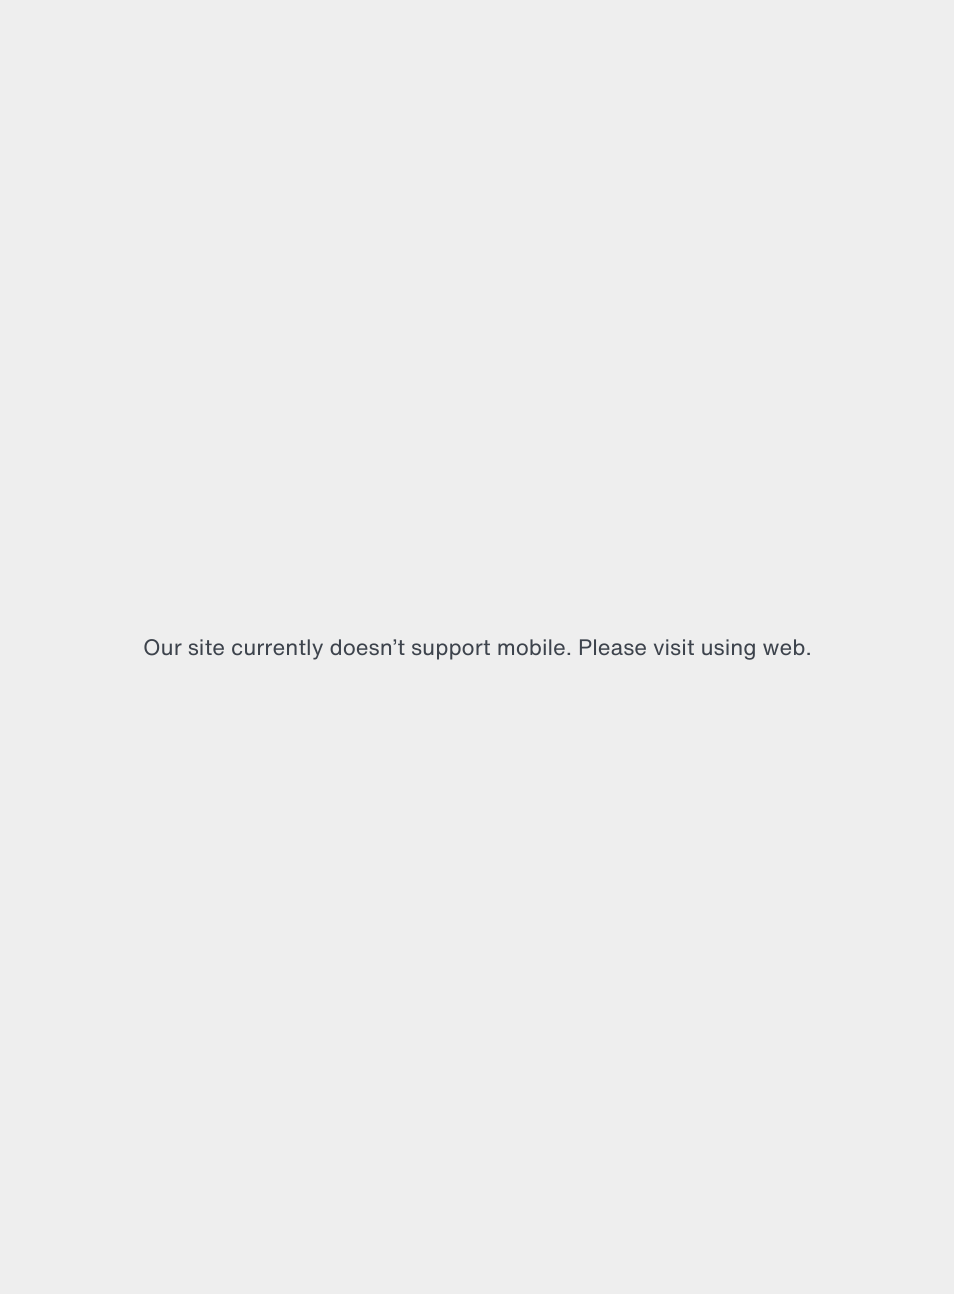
#include <cairo/cairo.h>
#include <math.h>
#include <stddef.h>


static void draw(cairo_t *cr) {
  cairo_set_source_rgb(cr, 238 / 255.0, 238 / 255.0, 238 / 255.0);
  cairo_paint(cr);
  cairo_select_font_face(cr, "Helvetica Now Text", CAIRO_FONT_SLANT_NORMAL, CAIRO_FONT_WEIGHT_NORMAL);
  cairo_set_font_size(cr, 22);
  cairo_set_source_rgb(cr, 61 / 255.0, 67 / 255.0, 76 / 255.0);
  cairo_move_to(cr, 143, 655);
  cairo_show_text(cr, "Our site currently doesn’t support mobile. Please visit using web.");
}

int main(void) {
  cairo_surface_t *surface = cairo_image_surface_create(CAIRO_FORMAT_RGB24, 954, 1294);
  cairo_t *cr = cairo_create(surface);
  cairo_font_options_t *options = cairo_font_options_create();
  cairo_font_options_set_hint_metrics(options, CAIRO_HINT_METRICS_OFF);
  cairo_font_options_set_hint_style(options, CAIRO_HINT_STYLE_NONE);
  cairo_set_font_options(cr, options);
  cairo_set_miter_limit(cr, 4);
  draw(cr);
  cairo_surface_write_to_png(surface, "out.png");
  cairo_font_options_destroy(options);
  cairo_destroy(cr);
  cairo_surface_destroy(surface);
  return 0;
}
